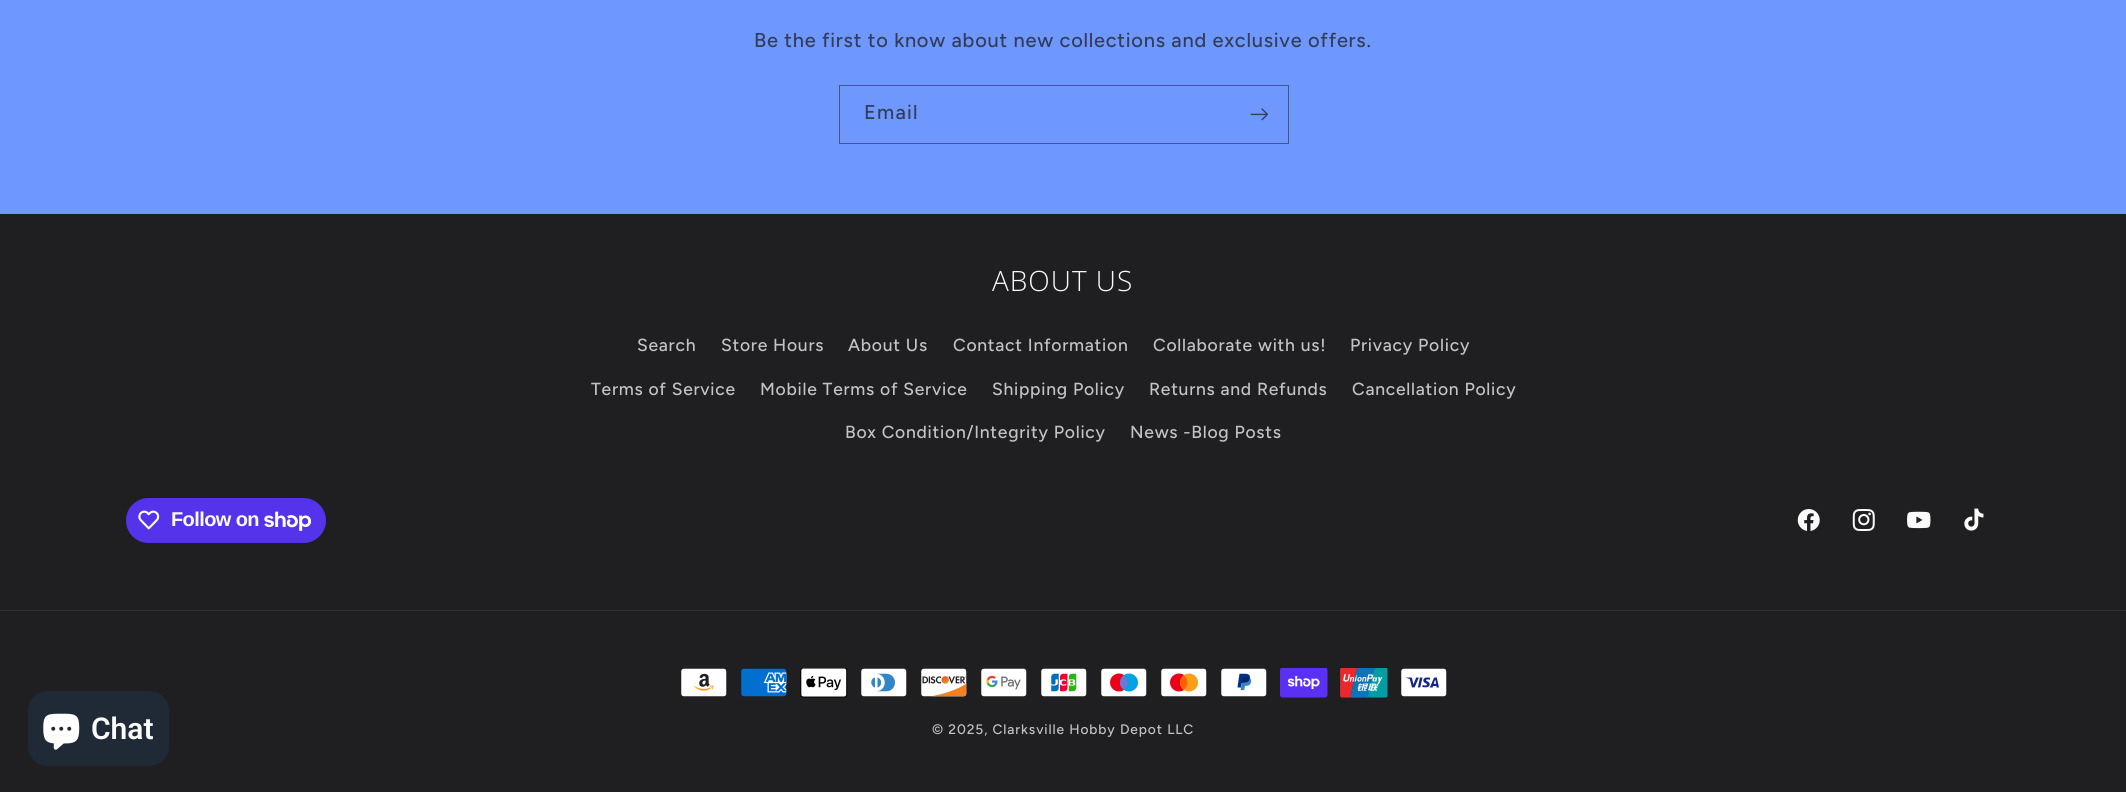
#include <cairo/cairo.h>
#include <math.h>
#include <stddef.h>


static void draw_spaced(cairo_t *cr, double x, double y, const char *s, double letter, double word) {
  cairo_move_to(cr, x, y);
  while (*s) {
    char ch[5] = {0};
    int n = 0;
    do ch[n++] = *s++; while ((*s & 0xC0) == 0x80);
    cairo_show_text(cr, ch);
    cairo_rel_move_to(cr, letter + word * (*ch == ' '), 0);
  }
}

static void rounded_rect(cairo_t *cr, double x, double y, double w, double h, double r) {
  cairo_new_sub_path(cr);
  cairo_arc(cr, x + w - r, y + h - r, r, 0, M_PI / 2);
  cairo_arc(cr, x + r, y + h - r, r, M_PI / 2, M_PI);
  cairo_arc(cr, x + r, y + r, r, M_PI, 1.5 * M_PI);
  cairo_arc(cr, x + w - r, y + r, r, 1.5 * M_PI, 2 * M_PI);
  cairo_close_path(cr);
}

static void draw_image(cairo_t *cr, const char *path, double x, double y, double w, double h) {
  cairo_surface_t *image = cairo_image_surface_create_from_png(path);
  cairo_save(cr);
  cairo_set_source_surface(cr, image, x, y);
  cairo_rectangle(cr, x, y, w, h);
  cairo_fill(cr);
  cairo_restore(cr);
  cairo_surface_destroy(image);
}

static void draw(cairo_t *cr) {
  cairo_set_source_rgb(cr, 31 / 255.0, 31 / 255.0, 33 / 255.0);
  cairo_paint(cr);
  cairo_set_source_rgb(cr, 111 / 255.0, 152 / 255.0, 1);
  cairo_rectangle(cr, 0, 0, 2126, 214);
  cairo_fill(cr);
  cairo_rectangle(cr, 839.5, 85.5, 449, 58);
  cairo_set_source_rgb(cr, 67 / 255.0, 85 / 255.0, 133 / 255.0);
  cairo_set_line_width(cr, 1);
  cairo_stroke(cr);
  draw_image(cr, "images/1.png", 1250, 108, 18, 13);
  cairo_set_source_rgb(cr, 32 / 255.0, 42 / 255.0, 54 / 255.0);
  rounded_rect(cr, 28, 691, 141, 75, 20);
  cairo_fill(cr);
  draw_image(cr, "images/2.png", 43, 713, 37, 37);
  cairo_set_source_rgb(cr, 84 / 255.0, 51 / 255.0, 235 / 255.0);
  rounded_rect(cr, 126, 498, 200, 45, 22.5);
  cairo_fill(cr);
  draw_image(cr, "images/3.png", 138, 510, 22, 20);
  draw_image(cr, "images/4.png", 264, 511, 47, 20);
  draw_image(cr, "images/5.png", 1797, 509, 23, 22);
  draw_image(cr, "images/6.png", 1852, 509, 23, 22);
  draw_image(cr, "images/7.png", 1907, 511, 24, 18);
  draw_image(cr, "images/8.png", 1964, 508, 20, 23);
  cairo_set_source_rgb(cr, 49 / 255.0, 49 / 255.0, 50 / 255.0);
  cairo_rectangle(cr, 0, 610, 2126, 1);
  cairo_fill(cr);
  draw_image(cr, "images/9.png", 681, 668, 46, 29);
  draw_image(cr, "images/10.png", 741, 668, 46, 29);
  draw_image(cr, "images/11.png", 800, 668, 48, 30);
  draw_image(cr, "images/12.png", 861, 668, 46, 29);
  draw_image(cr, "images/13.png", 921, 668, 46, 29);
  draw_image(cr, "images/14.png", 981, 668, 46, 29);
  draw_image(cr, "images/15.png", 1041, 668, 46, 29);
  draw_image(cr, "images/16.png", 1101, 668, 46, 29);
  draw_image(cr, "images/17.png", 1161, 668, 46, 29);
  draw_image(cr, "images/18.png", 1221, 668, 46, 29);
  draw_image(cr, "images/19.png", 1280, 668, 48, 30);
  draw_image(cr, "images/20.png", 1340, 668, 48, 30);
  draw_image(cr, "images/21.png", 1401, 668, 46, 29);
  cairo_select_font_face(cr, "Figtree Medium", CAIRO_FONT_SLANT_NORMAL, CAIRO_FONT_WEIGHT_NORMAL);
  cairo_set_font_size(cr, 20);
  cairo_set_source_rgb(cr, 51 / 255.0, 61 / 255.0, 89 / 255.0);
  draw_spaced(cr, 754, 47, "Be the first to know about new collections and exclusive offers.", 0.75, 0);
  draw_spaced(cr, 864, 119, "Email", 1.25, 0);
  cairo_select_font_face(cr, "Roboto SemiBold", CAIRO_FONT_SLANT_NORMAL, CAIRO_FONT_WEIGHT_NORMAL);
  cairo_set_font_size(cr, 30);
  cairo_set_source_rgb(cr, 250 / 255.0, 250 / 255.0, 250 / 255.0);
  cairo_move_to(cr, 91, 739);
  cairo_show_text(cr, "Chat");
  cairo_select_font_face(cr, "Open Sans Light", CAIRO_FONT_SLANT_NORMAL, CAIRO_FONT_WEIGHT_NORMAL);
  cairo_set_font_size(cr, 28);
  draw_spaced(cr, 992, 291, "ABOUT US", 1, 0);
  cairo_select_font_face(cr, "Figtree Medium", CAIRO_FONT_SLANT_NORMAL, CAIRO_FONT_WEIGHT_NORMAL);
  cairo_set_font_size(cr, 17.5);
  cairo_set_source_rgb(cr, 195 / 255.0, 195 / 255.0, 196 / 255.0);
  draw_spaced(cr, 637, 351, "Search", 0.75, 0);
  draw_spaced(cr, 721, 351, "Store Hours", 0.75, 0);
  draw_spaced(cr, 848, 351, "About Us", 0.75, 0);
  draw_spaced(cr, 953, 351, "Contact Information", 0.75, 0);
  draw_spaced(cr, 1153, 351, "Collaborate with us!", 0.75, 0);
  draw_spaced(cr, 1350, 351, "Privacy Policy", 0.75, 0);
  draw_spaced(cr, 591, 395, "Terms of Service", 0.75, 0);
  draw_spaced(cr, 760, 395, "Mobile Terms of Service", 0.75, 0);
  draw_spaced(cr, 992, 395, "Shipping Policy", 0.75, 0);
  draw_spaced(cr, 1149, 395, "Returns and Refunds", 0.75, 0);
  draw_spaced(cr, 1352, 395, "Cancellation Policy", 0.75, 0);
  draw_spaced(cr, 845, 438, "Box Condition/Integrity Policy", 0.75, 0);
  draw_spaced(cr, 1130, 438, "News -Blog Posts", 0.75, 0);
  cairo_select_font_face(cr, "Liberation Sans", CAIRO_FONT_SLANT_NORMAL, CAIRO_FONT_WEIGHT_BOLD);
  cairo_set_font_size(cr, 20);
  cairo_set_source_rgb(cr, 250 / 255.0, 250 / 255.0, 250 / 255.0);
  draw_spaced(cr, 171, 526, "Follow on", -0.6, 0);
  cairo_select_font_face(cr, "Figtree Medium", CAIRO_FONT_SLANT_NORMAL, CAIRO_FONT_WEIGHT_NORMAL);
  cairo_set_font_size(cr, 13.75);
  cairo_set_source_rgb(cr, 195 / 255.0, 195 / 255.0, 196 / 255.0);
  draw_spaced(cr, 932, 734, "© 2025, Clarksville Hobby Depot LLC", 0.9, 0);
}

int main(void) {
  cairo_surface_t *surface = cairo_image_surface_create(CAIRO_FORMAT_RGB24, 2126, 792);
  cairo_t *cr = cairo_create(surface);
  cairo_font_options_t *options = cairo_font_options_create();
  cairo_font_options_set_hint_metrics(options, CAIRO_HINT_METRICS_OFF);
  cairo_font_options_set_hint_style(options, CAIRO_HINT_STYLE_NONE);
  cairo_set_font_options(cr, options);
  cairo_set_miter_limit(cr, 4);
  draw(cr);
  cairo_surface_write_to_png(surface, "out.png");
  cairo_font_options_destroy(options);
  cairo_destroy(cr);
  cairo_surface_destroy(surface);
  return 0;
}
